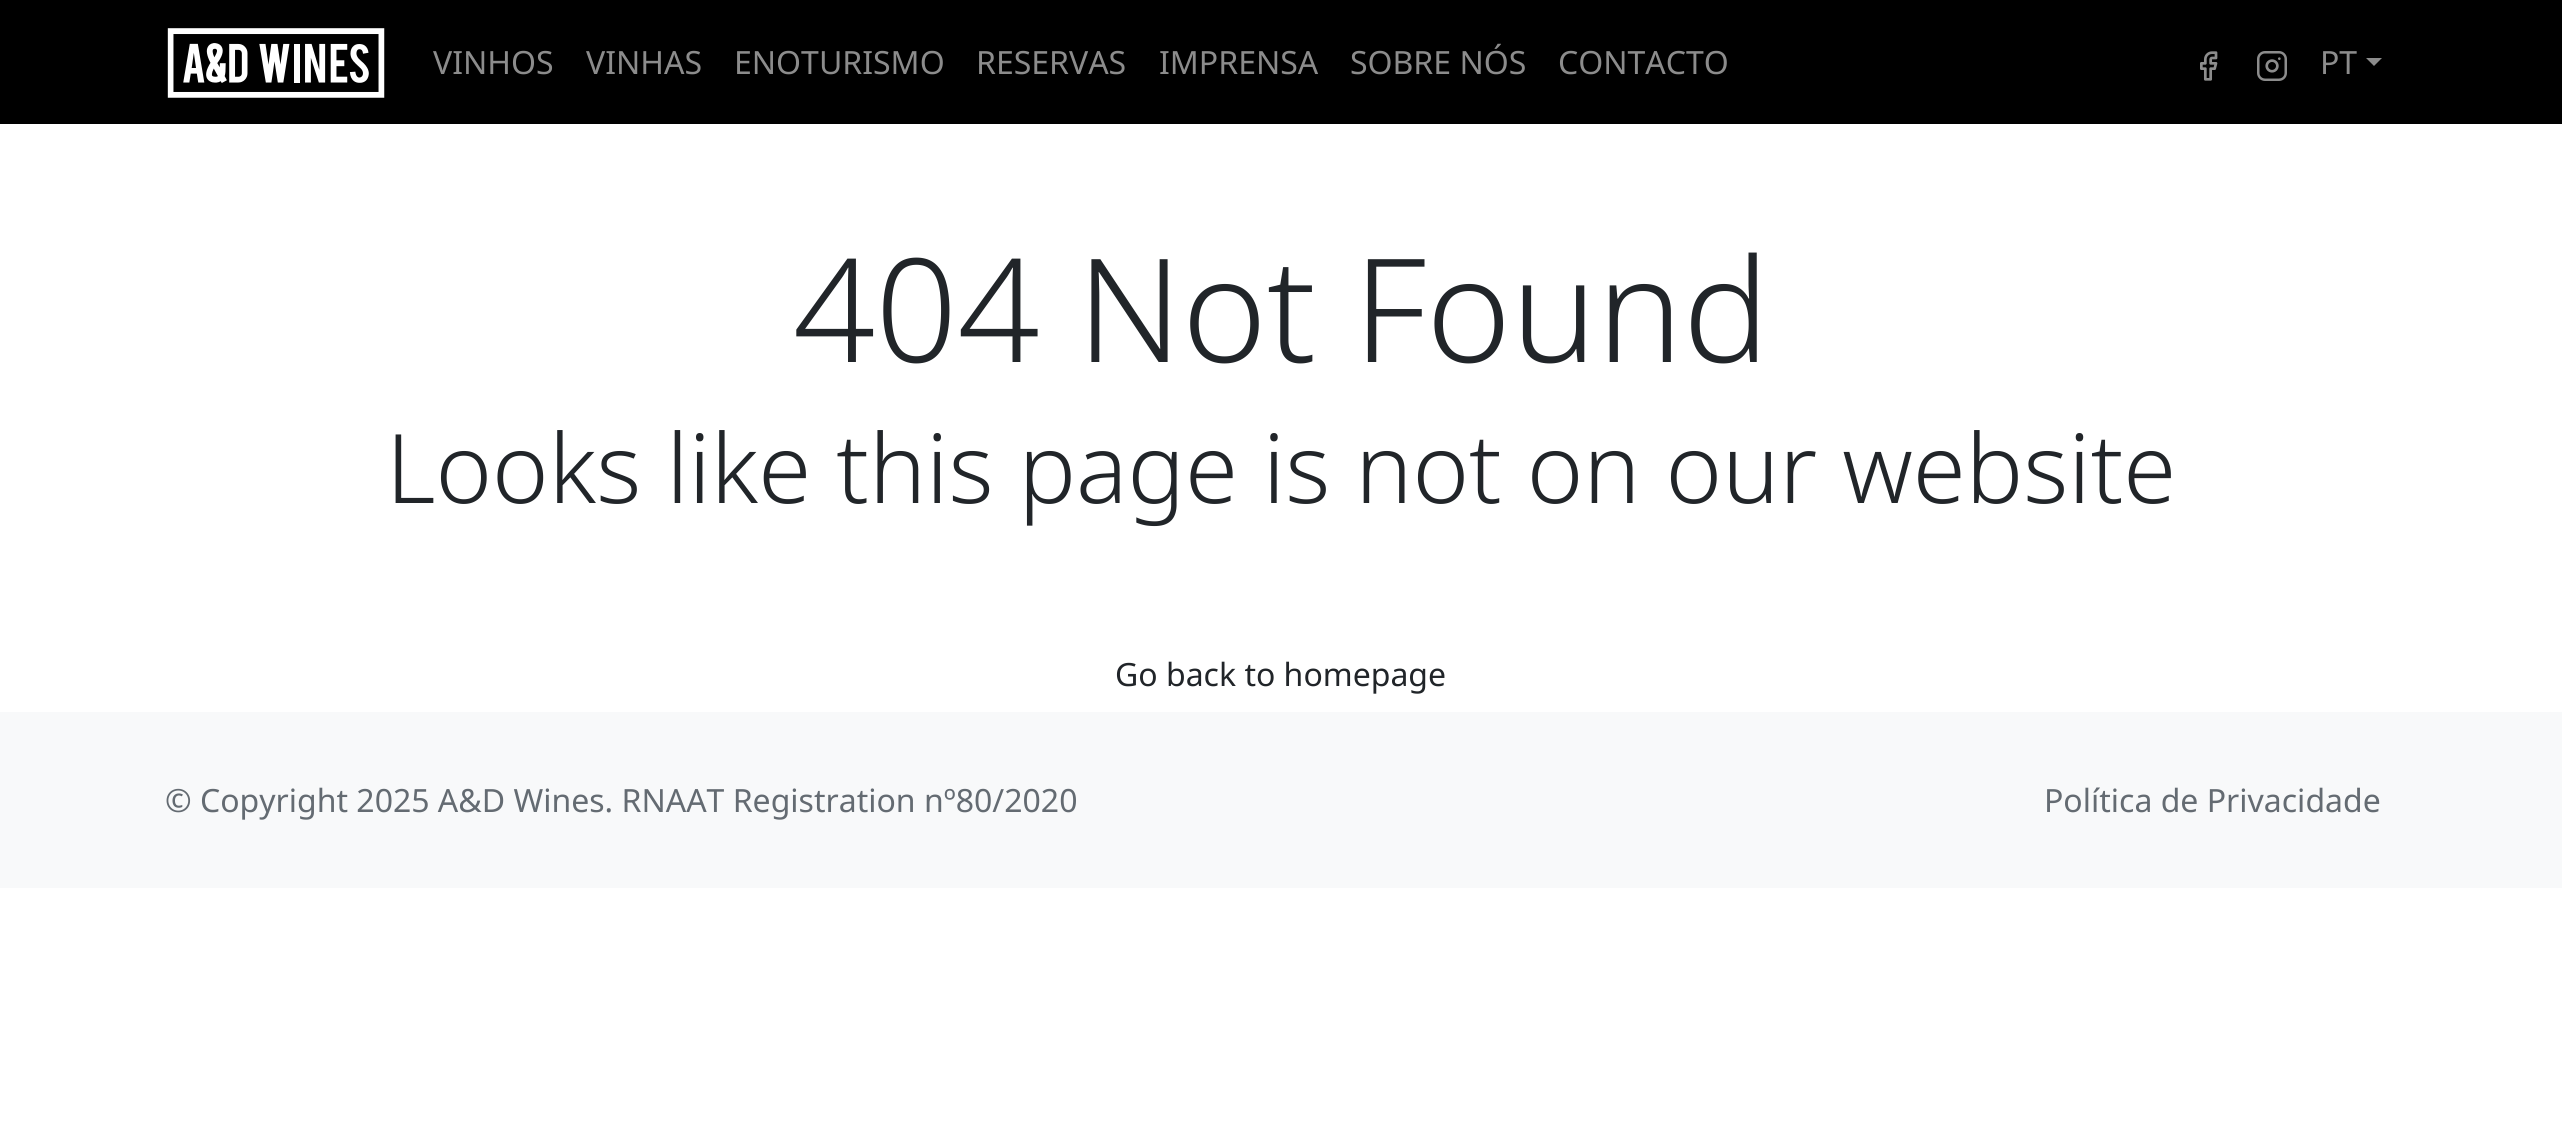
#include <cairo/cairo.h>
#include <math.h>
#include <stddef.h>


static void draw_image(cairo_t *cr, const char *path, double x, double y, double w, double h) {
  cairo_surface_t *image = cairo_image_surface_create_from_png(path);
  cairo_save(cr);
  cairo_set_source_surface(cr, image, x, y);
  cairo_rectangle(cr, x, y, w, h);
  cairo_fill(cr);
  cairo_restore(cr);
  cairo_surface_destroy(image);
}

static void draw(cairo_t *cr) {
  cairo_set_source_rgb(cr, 1, 1, 1);
  cairo_paint(cr);
  cairo_set_source_rgb(cr, 0, 0, 0);
  cairo_rectangle(cr, 0, 0, 2562, 124);
  cairo_fill(cr);
  draw_image(cr, "images/1.png", 167, 28, 218, 70);
  draw_image(cr, "images/2.png", 2200, 51, 18, 30);
  draw_image(cr, "images/3.png", 2257, 51, 30, 30);
  cairo_set_source_rgb(cr, 140 / 255.0, 140 / 255.0, 140 / 255.0);
  cairo_new_path(cr);
  cairo_move_to(cr, 2366, 58);
  cairo_line_to(cr, 2382, 58);
  cairo_line_to(cr, 2374, 66);
  cairo_close_path(cr);
  cairo_fill(cr);
  cairo_set_source_rgb(cr, 248 / 255.0, 249 / 255.0, 250 / 255.0);
  cairo_rectangle(cr, 0, 712, 2562, 176);
  cairo_fill(cr);
  cairo_select_font_face(cr, "Noto Sans", CAIRO_FONT_SLANT_NORMAL, CAIRO_FONT_WEIGHT_NORMAL);
  cairo_set_font_size(cr, 32);
  cairo_set_source_rgb(cr, 140 / 255.0, 140 / 255.0, 140 / 255.0);
  cairo_move_to(cr, 433, 74);
  cairo_show_text(cr, "VINHOS");
  cairo_move_to(cr, 586, 74);
  cairo_show_text(cr, "VINHAS");
  cairo_move_to(cr, 734, 74);
  cairo_show_text(cr, "ENOTURISMO");
  cairo_move_to(cr, 976, 74);
  cairo_show_text(cr, "RESERVAS");
  cairo_move_to(cr, 1159, 74);
  cairo_show_text(cr, "IMPRENSA");
  cairo_move_to(cr, 1350, 74);
  cairo_show_text(cr, "SOBRE NÓS");
  cairo_move_to(cr, 1558, 74);
  cairo_show_text(cr, "CONTACTO");
  cairo_move_to(cr, 2320, 74);
  cairo_show_text(cr, "PT");
  cairo_select_font_face(cr, "Noto Sans Light", CAIRO_FONT_SLANT_NORMAL, CAIRO_FONT_WEIGHT_NORMAL);
  cairo_set_font_size(cr, 144);
  cairo_set_source_rgb(cr, 33 / 255.0, 37 / 255.0, 41 / 255.0);
  cairo_move_to(cr, 793, 362);
  cairo_show_text(cr, "404 Not Found");
  cairo_set_font_size(cr, 96);
  cairo_move_to(cr, 386, 503);
  cairo_show_text(cr, "Looks like this page is not on our website");
  cairo_select_font_face(cr, "Noto Sans", CAIRO_FONT_SLANT_NORMAL, CAIRO_FONT_WEIGHT_NORMAL);
  cairo_set_font_size(cr, 32);
  cairo_move_to(cr, 1115, 686);
  cairo_show_text(cr, "Go back to homepage");
  cairo_set_source_rgb(cr, 100 / 255.0, 107 / 255.0, 114 / 255.0);
  cairo_move_to(cr, 165, 812);
  cairo_show_text(cr, "© Copyright 2025 A&D Wines. RNAAT Registration nº80/2020");
  cairo_move_to(cr, 2044, 812);
  cairo_show_text(cr, "Política de Privacidade");
}

int main(void) {
  cairo_surface_t *surface = cairo_image_surface_create(CAIRO_FORMAT_RGB24, 2562, 1145);
  cairo_t *cr = cairo_create(surface);
  cairo_font_options_t *options = cairo_font_options_create();
  cairo_font_options_set_hint_metrics(options, CAIRO_HINT_METRICS_OFF);
  cairo_font_options_set_hint_style(options, CAIRO_HINT_STYLE_NONE);
  cairo_set_font_options(cr, options);
  cairo_set_miter_limit(cr, 4);
  draw(cr);
  cairo_surface_write_to_png(surface, "out.png");
  cairo_font_options_destroy(options);
  cairo_destroy(cr);
  cairo_surface_destroy(surface);
  return 0;
}
